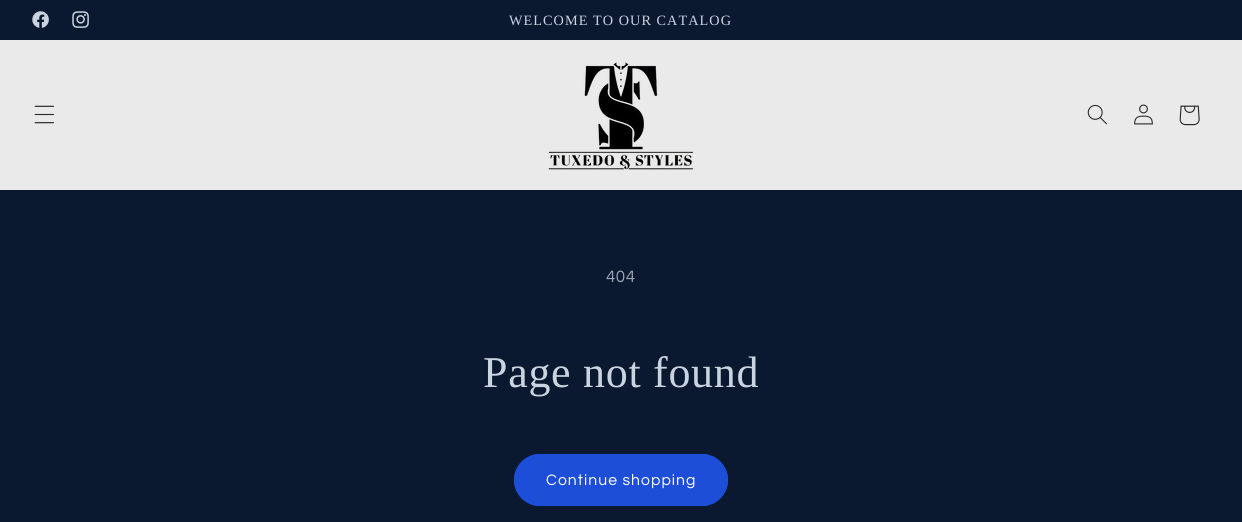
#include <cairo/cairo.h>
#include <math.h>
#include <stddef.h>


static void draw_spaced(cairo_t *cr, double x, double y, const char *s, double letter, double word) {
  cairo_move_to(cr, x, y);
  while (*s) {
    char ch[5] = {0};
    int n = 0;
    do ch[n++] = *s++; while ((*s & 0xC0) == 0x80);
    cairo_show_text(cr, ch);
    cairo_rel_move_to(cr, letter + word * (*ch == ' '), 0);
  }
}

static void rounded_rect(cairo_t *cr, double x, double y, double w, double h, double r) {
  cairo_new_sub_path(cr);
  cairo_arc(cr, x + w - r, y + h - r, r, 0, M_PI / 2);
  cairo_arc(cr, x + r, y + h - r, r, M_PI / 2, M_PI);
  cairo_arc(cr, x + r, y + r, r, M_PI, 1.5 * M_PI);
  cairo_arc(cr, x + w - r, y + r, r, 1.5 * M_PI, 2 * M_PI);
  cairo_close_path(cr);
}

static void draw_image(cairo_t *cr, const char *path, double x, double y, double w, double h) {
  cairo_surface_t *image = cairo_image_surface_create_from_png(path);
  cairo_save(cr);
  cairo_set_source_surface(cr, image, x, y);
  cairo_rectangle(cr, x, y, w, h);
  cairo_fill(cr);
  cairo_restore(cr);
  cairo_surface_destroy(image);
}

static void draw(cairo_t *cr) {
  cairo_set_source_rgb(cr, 10 / 255.0, 25 / 255.0, 47 / 255.0);
  cairo_paint(cr);
  draw_image(cr, "images/1.png", 32, 11, 17, 17);
  draw_image(cr, "images/2.png", 72, 11, 17, 17);
  cairo_set_source_rgb(cr, 234 / 255.0, 234 / 255.0, 234 / 255.0);
  cairo_rectangle(cr, 0, 40, 1242, 150);
  cairo_fill(cr);
  draw_image(cr, "images/3.png", 34, 105, 20, 19);
  draw_image(cr, "images/4.png", 548, 62, 146, 108);
  draw_image(cr, "images/5.png", 1087, 104, 20, 21);
  draw_image(cr, "images/6.png", 1134, 104, 19, 21);
  draw_image(cr, "images/7.png", 1179, 105, 21, 21);
  cairo_set_source_rgb(cr, 29 / 255.0, 78 / 255.0, 216 / 255.0);
  rounded_rect(cr, 514, 454, 214, 52, 26);
  cairo_fill(cr);
  rounded_rect(cr, 515, 455, 212, 50, 25);
  cairo_stroke(cr);
  cairo_select_font_face(cr, "Liberation Serif", CAIRO_FONT_SLANT_NORMAL, CAIRO_FONT_WEIGHT_NORMAL);
  cairo_set_font_size(cr, 14.25);
  cairo_set_source_rgb(cr, 202 / 255.0, 211 / 255.0, 226 / 255.0);
  draw_spaced(cr, 509, 25, "WELCOME TO OUR CATALOG", 1.05, 0);
  cairo_select_font_face(cr, "Questrial", CAIRO_FONT_SLANT_NORMAL, CAIRO_FONT_WEIGHT_NORMAL);
  cairo_set_font_size(cr, 17);
  cairo_set_source_rgb(cr, 154 / 255.0, 165 / 255.0, 181 / 255.0);
  draw_spaced(cr, 606, 282, "404", 0.5, 0);
  cairo_select_font_face(cr, "Liberation Serif", CAIRO_FONT_SLANT_NORMAL, CAIRO_FONT_WEIGHT_NORMAL);
  cairo_set_font_size(cr, 44);
  cairo_set_source_rgb(cr, 202 / 255.0, 211 / 255.0, 226 / 255.0);
  draw_spaced(cr, 483, 387, "Page not found", 0.7, 0);
  cairo_select_font_face(cr, "Questrial", CAIRO_FONT_SLANT_NORMAL, CAIRO_FONT_WEIGHT_NORMAL);
  cairo_set_font_size(cr, 15.75);
  cairo_set_source_rgb(cr, 1, 1, 1);
  draw_spaced(cr, 546, 485, "Continue shopping", 1.05, 0);
}

int main(void) {
  cairo_surface_t *surface = cairo_image_surface_create(CAIRO_FORMAT_RGB24, 1242, 522);
  cairo_t *cr = cairo_create(surface);
  cairo_font_options_t *options = cairo_font_options_create();
  cairo_font_options_set_hint_metrics(options, CAIRO_HINT_METRICS_OFF);
  cairo_font_options_set_hint_style(options, CAIRO_HINT_STYLE_NONE);
  cairo_set_font_options(cr, options);
  cairo_set_miter_limit(cr, 4);
  draw(cr);
  cairo_surface_write_to_png(surface, "out.png");
  cairo_font_options_destroy(options);
  cairo_destroy(cr);
  cairo_surface_destroy(surface);
  return 0;
}
